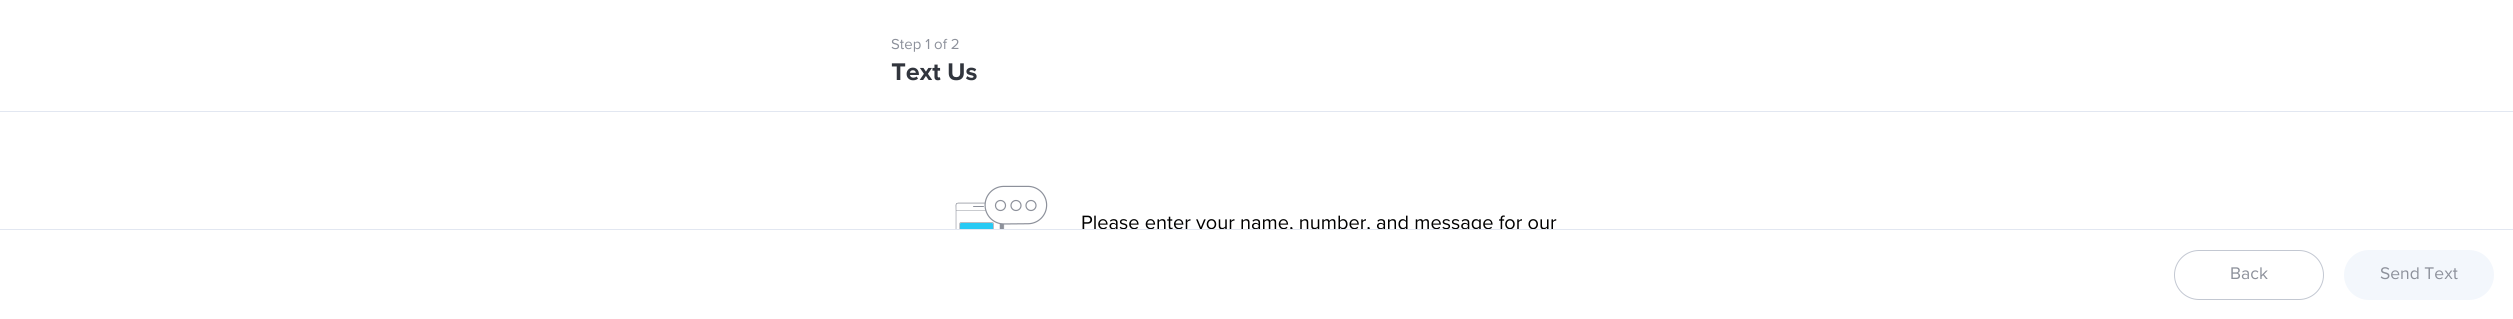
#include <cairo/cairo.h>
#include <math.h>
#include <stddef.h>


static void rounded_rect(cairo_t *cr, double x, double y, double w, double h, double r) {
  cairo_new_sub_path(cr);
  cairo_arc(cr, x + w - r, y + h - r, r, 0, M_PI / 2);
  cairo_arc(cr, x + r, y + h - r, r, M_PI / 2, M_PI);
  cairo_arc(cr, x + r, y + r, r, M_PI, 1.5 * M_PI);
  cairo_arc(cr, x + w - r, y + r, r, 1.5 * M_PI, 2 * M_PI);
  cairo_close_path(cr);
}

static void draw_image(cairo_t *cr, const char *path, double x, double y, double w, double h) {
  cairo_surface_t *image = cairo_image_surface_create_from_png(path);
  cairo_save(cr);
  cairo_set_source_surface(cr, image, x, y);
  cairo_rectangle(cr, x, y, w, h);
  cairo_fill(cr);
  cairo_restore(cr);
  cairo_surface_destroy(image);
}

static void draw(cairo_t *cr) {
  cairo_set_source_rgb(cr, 1, 1, 1);
  cairo_paint(cr);
  cairo_set_source_rgb(cr, 226 / 255.0, 231 / 255.0, 241 / 255.0);
  cairo_rectangle(cr, 0, 111, 2513, 1);
  cairo_fill(cr);
  draw_image(cr, "images/1.png", 891, 63, 86, 18);
  draw_image(cr, "images/2.png", 955, 185, 93, 44);
  rounded_rect(cr, 2174.5, 250.5, 149, 49, 24.5);
  cairo_set_source_rgb(cr, 195 / 255.0, 200 / 255.0, 210 / 255.0);
  cairo_set_line_width(cr, 1);
  cairo_stroke(cr);
  cairo_set_source_rgb(cr, 243 / 255.0, 247 / 255.0, 252 / 255.0);
  rounded_rect(cr, 2345.5, 251.5, 147, 47, 23.5);
  cairo_fill_preserve(cr);
  cairo_set_line_width(cr, 3);
  cairo_stroke(cr);
  cairo_select_font_face(cr, "Proxima Nova", CAIRO_FONT_SLANT_NORMAL, CAIRO_FONT_WEIGHT_NORMAL);
  cairo_set_font_size(cr, 15);
  cairo_set_source_rgb(cr, 141 / 255.0, 145 / 255.0, 155 / 255.0);
  cairo_move_to(cr, 891, 49);
  cairo_show_text(cr, "Step 1 of 2");
  cairo_set_font_size(cr, 20);
  cairo_set_source_rgb(cr, 0, 0, 0);
  cairo_move_to(cr, 1081, 229);
  cairo_show_text(cr, "Please enter your name, number, and message for our");
  cairo_set_source_rgb(cr, 1, 1, 1);
  cairo_rectangle(cr, 1197, 230, 284, 3);
  cairo_fill(cr);
  cairo_set_source_rgb(cr, 226 / 255.0, 231 / 255.0, 241 / 255.0);
  cairo_rectangle(cr, 0, 229, 2513, 1);
  cairo_fill(cr);
  cairo_set_font_size(cr, 17.5);
  cairo_set_source_rgb(cr, 141 / 255.0, 145 / 255.0, 155 / 255.0);
  cairo_move_to(cr, 2230, 279);
  cairo_show_text(cr, "Back");
  cairo_move_to(cr, 2380, 279);
  cairo_show_text(cr, "Send Text");
}

int main(void) {
  cairo_surface_t *surface = cairo_image_surface_create(CAIRO_FORMAT_RGB24, 2513, 319);
  cairo_t *cr = cairo_create(surface);
  cairo_font_options_t *options = cairo_font_options_create();
  cairo_font_options_set_hint_metrics(options, CAIRO_HINT_METRICS_OFF);
  cairo_font_options_set_hint_style(options, CAIRO_HINT_STYLE_NONE);
  cairo_set_font_options(cr, options);
  cairo_set_miter_limit(cr, 4);
  draw(cr);
  cairo_surface_write_to_png(surface, "out.png");
  cairo_font_options_destroy(options);
  cairo_destroy(cr);
  cairo_surface_destroy(surface);
  return 0;
}
